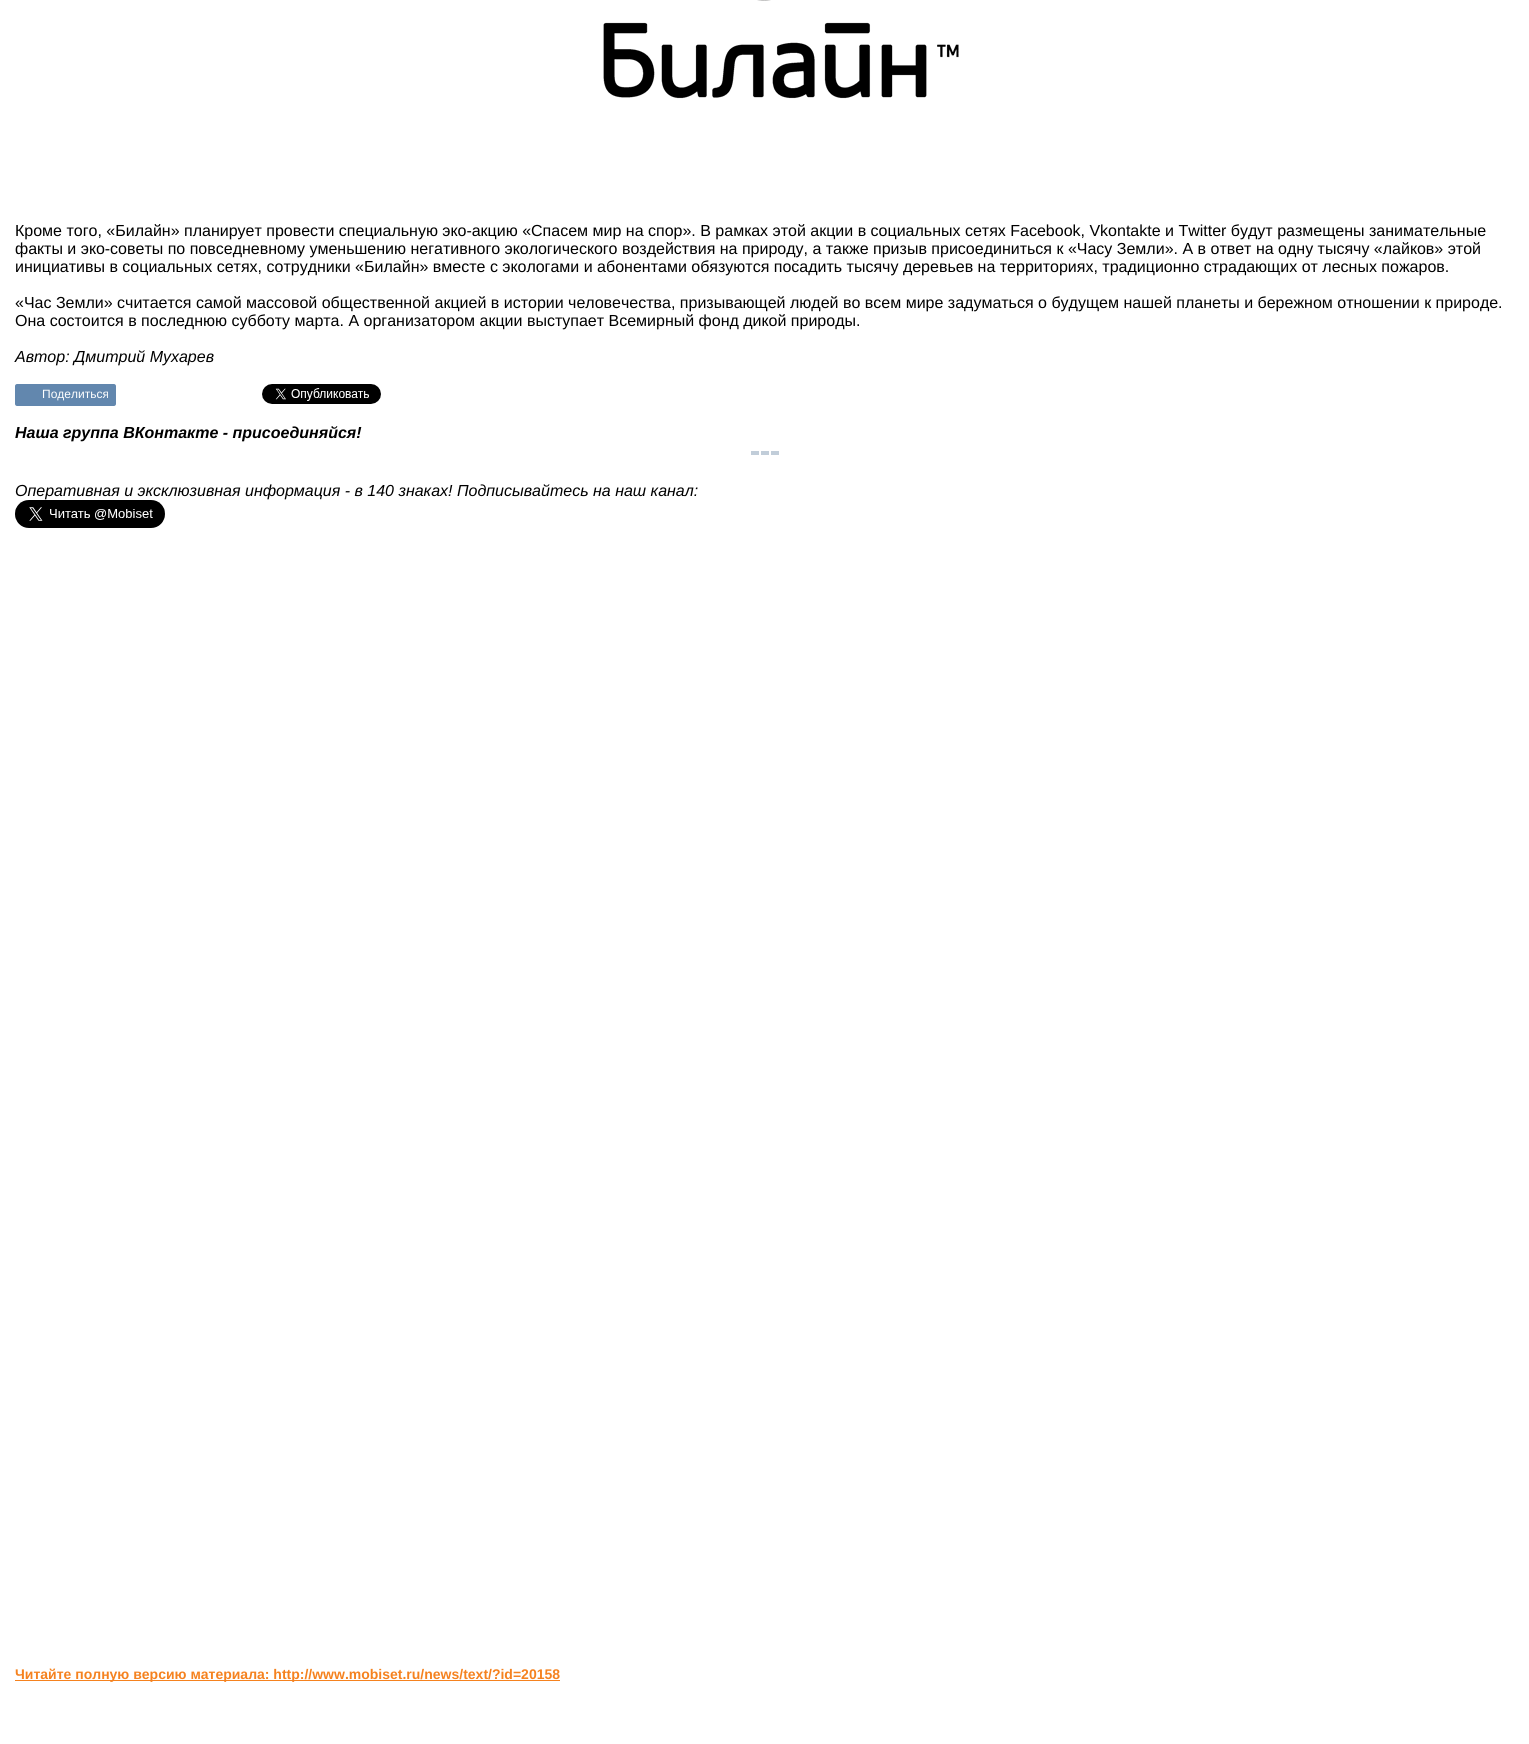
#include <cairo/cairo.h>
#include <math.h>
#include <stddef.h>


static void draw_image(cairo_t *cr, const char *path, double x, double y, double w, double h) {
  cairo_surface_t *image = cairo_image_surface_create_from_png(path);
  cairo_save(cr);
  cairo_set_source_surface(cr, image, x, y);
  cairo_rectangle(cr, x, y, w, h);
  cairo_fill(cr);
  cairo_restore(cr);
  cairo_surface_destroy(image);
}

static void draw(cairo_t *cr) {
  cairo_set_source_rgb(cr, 1, 1, 1);
  cairo_paint(cr);
  draw_image(cr, "images/1.png", 603, 0, 356, 99);
  cairo_set_source_rgb(cr, 98 / 255.0, 135 / 255.0, 174 / 255.0);
  cairo_new_path(cr);
  cairo_move_to(cr, 17, 384);
  cairo_line_to(cr, 42, 384);
  cairo_line_to(cr, 42, 406);
  cairo_line_to(cr, 17, 406);
  cairo_curve_to(cr, 16, 406, 15, 405, 15, 404);
  cairo_line_to(cr, 15, 386);
  cairo_curve_to(cr, 15, 385, 16, 384, 17, 384);
  cairo_close_path(cr);
  cairo_fill(cr);
  cairo_new_path(cr);
  cairo_move_to(cr, 42, 384);
  cairo_line_to(cr, 114, 384);
  cairo_curve_to(cr, 115, 384, 116, 385, 116, 386);
  cairo_line_to(cr, 116, 404);
  cairo_curve_to(cr, 116, 405, 115, 406, 114, 406);
  cairo_line_to(cr, 42, 406);
  cairo_close_path(cr);
  cairo_fill(cr);
  draw_image(cr, "images/2.png", 262, 384, 119, 20);
  draw_image(cr, "images/3.png", 751, 451, 28, 4);
  draw_image(cr, "images/4.png", 15, 500, 150, 28);
  cairo_set_source_rgb(cr, 245 / 255.0, 130 / 255.0, 31 / 255.0);
  cairo_rectangle(cr, 15, 1680, 545, 1);
  cairo_fill(cr);
  cairo_select_font_face(cr, "Liberation Sans", CAIRO_FONT_SLANT_NORMAL, CAIRO_FONT_WEIGHT_NORMAL);
  cairo_set_font_size(cr, 16);
  cairo_set_source_rgb(cr, 0, 0, 0);
  cairo_move_to(cr, 15, 236);
  cairo_show_text(cr, "Кроме того, «Билайн» планирует провести специальную эко-акцию «Спасем мир на спор». В рамках этой акции в социальных сетях Facebook, Vkontakte и Twitter будут размещены занимательные");
  cairo_move_to(cr, 15, 254);
  cairo_show_text(cr, "факты и эко-советы по повседневному уменьшению негативного экологического воздействия на природу, а также призыв присоединиться к «Часу Земли». А в ответ на одну тысячу «лайков» этой");
  cairo_move_to(cr, 15, 272);
  cairo_show_text(cr, "инициативы в социальных сетях, сотрудники «Билайн» вместе с экологами и абонентами обязуются посадить тысячу деревьев на территориях, традиционно страдающих от лесных пожаров.");
  cairo_move_to(cr, 15, 308);
  cairo_show_text(cr, "«Час Земли» считается самой массовой общественной акцией в истории человечества, призывающей людей во всем мире задуматься о будущем нашей планеты и бережном отношении к природе.");
  cairo_move_to(cr, 15, 326);
  cairo_show_text(cr, "Она состоится в последнюю субботу марта. А организатором акции выступает Всемирный фонд дикой природы.");
  cairo_select_font_face(cr, "Liberation Sans", CAIRO_FONT_SLANT_ITALIC, CAIRO_FONT_WEIGHT_NORMAL);
  cairo_move_to(cr, 15, 362);
  cairo_show_text(cr, "Автор: Дмитрий Мухарев");
  cairo_select_font_face(cr, "Liberation Sans", CAIRO_FONT_SLANT_NORMAL, CAIRO_FONT_WEIGHT_NORMAL);
  cairo_set_font_size(cr, 12);
  cairo_set_source_rgb(cr, 1, 1, 1);
  cairo_move_to(cr, 42, 398);
  cairo_show_text(cr, "Поделиться");
  cairo_select_font_face(cr, "Liberation Sans", CAIRO_FONT_SLANT_ITALIC, CAIRO_FONT_WEIGHT_BOLD);
  cairo_set_font_size(cr, 16);
  cairo_set_source_rgb(cr, 0, 0, 0);
  cairo_move_to(cr, 15, 438);
  cairo_show_text(cr, "Наша группа ВКонтакте - присоединяйся!");
  cairo_select_font_face(cr, "Liberation Sans", CAIRO_FONT_SLANT_ITALIC, CAIRO_FONT_WEIGHT_NORMAL);
  cairo_move_to(cr, 15, 496);
  cairo_show_text(cr, "Оперативная и эксклюзивная информация - в 140 знаках! Подписывайтесь на наш канал:");
  cairo_select_font_face(cr, "Liberation Sans", CAIRO_FONT_SLANT_NORMAL, CAIRO_FONT_WEIGHT_BOLD);
  cairo_set_font_size(cr, 14);
  cairo_set_source_rgb(cr, 245 / 255.0, 130 / 255.0, 31 / 255.0);
  cairo_move_to(cr, 15, 1679);
  cairo_show_text(cr, "Читайте полную версию материала: http://www.mobiset.ru/news/text/?id=20158");
}

int main(void) {
  cairo_surface_t *surface = cairo_image_surface_create(CAIRO_FORMAT_RGB24, 1529, 1744);
  cairo_t *cr = cairo_create(surface);
  cairo_font_options_t *options = cairo_font_options_create();
  cairo_font_options_set_hint_metrics(options, CAIRO_HINT_METRICS_OFF);
  cairo_font_options_set_hint_style(options, CAIRO_HINT_STYLE_NONE);
  cairo_set_font_options(cr, options);
  cairo_set_miter_limit(cr, 4);
  draw(cr);
  cairo_surface_write_to_png(surface, "out.png");
  cairo_font_options_destroy(options);
  cairo_destroy(cr);
  cairo_surface_destroy(surface);
  return 0;
}
